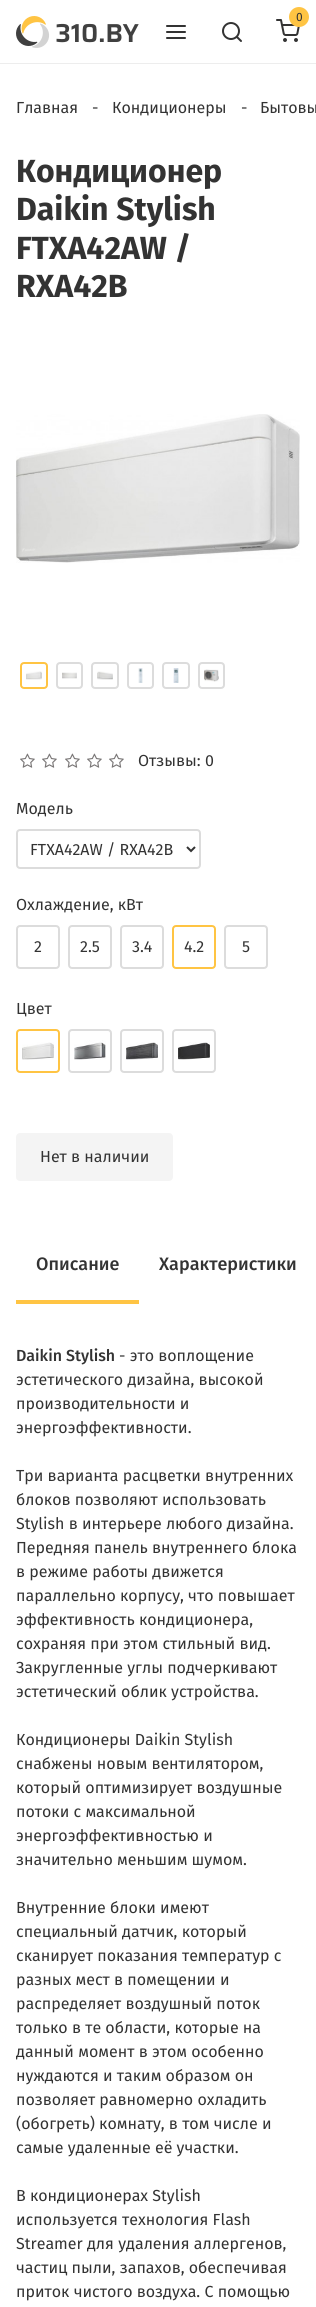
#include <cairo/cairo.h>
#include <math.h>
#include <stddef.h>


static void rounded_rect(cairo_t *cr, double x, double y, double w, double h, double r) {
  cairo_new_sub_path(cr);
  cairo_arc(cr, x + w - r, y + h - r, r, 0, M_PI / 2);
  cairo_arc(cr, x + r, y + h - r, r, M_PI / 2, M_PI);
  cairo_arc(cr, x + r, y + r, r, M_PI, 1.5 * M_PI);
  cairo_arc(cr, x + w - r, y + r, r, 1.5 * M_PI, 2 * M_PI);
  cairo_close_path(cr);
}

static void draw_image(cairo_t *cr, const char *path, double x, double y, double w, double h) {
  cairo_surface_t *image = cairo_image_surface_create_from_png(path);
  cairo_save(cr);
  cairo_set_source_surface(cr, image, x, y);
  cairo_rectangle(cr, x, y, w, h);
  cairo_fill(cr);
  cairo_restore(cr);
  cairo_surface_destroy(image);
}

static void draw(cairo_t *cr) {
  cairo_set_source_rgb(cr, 1, 1, 1);
  cairo_paint(cr);
  cairo_set_source_rgb(cr, 237 / 255.0, 237 / 255.0, 237 / 255.0);
  cairo_rectangle(cr, 0, 63, 316, 1);
  cairo_fill(cr);
  draw_image(cr, "images/1.png", 16, 16, 123, 32);
  draw_image(cr, "images/2.png", 276, 19, 24, 23);
  cairo_set_source_rgb(cr, 1, 196 / 255.0, 67 / 255.0);
  cairo_arc(cr, 299, 17, 10, 0, 2 * M_PI);
  cairo_fill(cr);
  draw_image(cr, "images/3.png", 166, 25, 20, 14);
  draw_image(cr, "images/4.png", 222, 22, 20, 20);
  draw_image(cr, "images/5.png", 16, 414, 284, 149);
  rounded_rect(cr, 21, 663, 26, 25, 3);
  cairo_stroke(cr);
  draw_image(cr, "images/6.png", 26, 671, 16, 9);
  rounded_rect(cr, 57, 663, 25, 25, 3);
  cairo_set_source_rgb(cr, 220 / 255.0, 220 / 255.0, 220 / 255.0);
  cairo_stroke(cr);
  draw_image(cr, "images/7.png", 62, 672, 15, 7);
  rounded_rect(cr, 92, 663, 26, 25, 3);
  cairo_stroke(cr);
  draw_image(cr, "images/8.png", 97, 671, 16, 9);
  rounded_rect(cr, 128, 663, 25, 25, 3);
  cairo_stroke(cr);
  draw_image(cr, "images/9.png", 138, 668, 5, 15);
  rounded_rect(cr, 163, 663, 26, 25, 3);
  cairo_stroke(cr);
  draw_image(cr, "images/10.png", 173, 668, 6, 15);
  rounded_rect(cr, 199, 663, 25, 25, 3);
  cairo_stroke(cr);
  draw_image(cr, "images/11.png", 204, 669, 15, 13);
  draw_image(cr, "images/12.png", 20, 753, 15, 15);
  draw_image(cr, "images/12.png", 42, 753, 15, 15);
  draw_image(cr, "images/12.png", 65, 753, 15, 15);
  draw_image(cr, "images/12.png", 87, 753, 15, 15);
  draw_image(cr, "images/12.png", 109, 753, 15, 15);
  rounded_rect(cr, 17, 830, 183, 38, 3);
  cairo_stroke(cr);
  cairo_new_path(cr);
  cairo_move_to(cr, 187, 847);
  cairo_line_to(cr, 191, 851);
  cairo_line_to(cr, 195, 847);
  cairo_set_source_rgb(cr, 51 / 255.0, 51 / 255.0, 51 / 255.0);
  cairo_stroke(cr);
  rounded_rect(cr, 17, 926, 42, 42, 3);
  cairo_set_source_rgb(cr, 220 / 255.0, 220 / 255.0, 220 / 255.0);
  cairo_stroke(cr);
  rounded_rect(cr, 69, 926, 42, 42, 3);
  cairo_stroke(cr);
  rounded_rect(cr, 121, 926, 42, 42, 3);
  cairo_stroke(cr);
  rounded_rect(cr, 173, 926, 42, 42, 3);
  cairo_set_source_rgb(cr, 1, 196 / 255.0, 67 / 255.0);
  cairo_stroke(cr);
  rounded_rect(cr, 225, 926, 42, 42, 3);
  cairo_set_source_rgb(cr, 220 / 255.0, 220 / 255.0, 220 / 255.0);
  cairo_stroke(cr);
  rounded_rect(cr, 17, 1030, 42, 42, 3);
  cairo_set_source_rgb(cr, 1, 196 / 255.0, 67 / 255.0);
  cairo_stroke(cr);
  draw_image(cr, "images/13.png", 22, 1042, 32, 18);
  rounded_rect(cr, 69, 1030, 42, 42, 3);
  cairo_set_source_rgb(cr, 220 / 255.0, 220 / 255.0, 220 / 255.0);
  cairo_stroke(cr);
  draw_image(cr, "images/14.png", 74, 1040, 32, 20);
  rounded_rect(cr, 121, 1030, 42, 42, 3);
  cairo_stroke(cr);
  draw_image(cr, "images/15.png", 126, 1042, 32, 18);
  rounded_rect(cr, 173, 1030, 42, 42, 3);
  cairo_stroke(cr);
  draw_image(cr, "images/16.png", 178, 1042, 32, 18);
  cairo_set_source_rgb(cr, 244 / 255.0, 244 / 255.0, 244 / 255.0);
  rounded_rect(cr, 16, 1133, 157, 48, 4);
  cairo_fill(cr);
  cairo_set_source_rgb(cr, 1, 196 / 255.0, 67 / 255.0);
  cairo_rectangle(cr, 16, 1300, 123, 4);
  cairo_fill(cr);
  cairo_select_font_face(cr, "Fira Sans", CAIRO_FONT_SLANT_NORMAL, CAIRO_FONT_WEIGHT_NORMAL);
  cairo_set_font_size(cr, 12);
  cairo_set_source_rgb(cr, 51 / 255.0, 51 / 255.0, 51 / 255.0);
  cairo_move_to(cr, 296, 21);
  cairo_show_text(cr, "0");
  cairo_set_font_size(cr, 16);
  cairo_move_to(cr, 16, 113);
  cairo_show_text(cr, "Главная");
  cairo_move_to(cr, 92, 113);
  cairo_show_text(cr, "-");
  cairo_move_to(cr, 112, 113);
  cairo_show_text(cr, "Кондиционеры");
  cairo_move_to(cr, 241, 113);
  cairo_show_text(cr, "-");
  cairo_move_to(cr, 260, 113);
  cairo_show_text(cr, "Бытовы");
  cairo_select_font_face(cr, "Fira Sans", CAIRO_FONT_SLANT_NORMAL, CAIRO_FONT_WEIGHT_BOLD);
  cairo_set_font_size(cr, 32);
  cairo_move_to(cr, 16, 182);
  cairo_show_text(cr, "Кондиционер");
  cairo_move_to(cr, 16, 220);
  cairo_show_text(cr, "Daikin Stylish");
  cairo_move_to(cr, 16, 259);
  cairo_show_text(cr, "FTXA42AW /");
  cairo_move_to(cr, 16, 297);
  cairo_show_text(cr, "RXA42B");
  cairo_select_font_face(cr, "Fira Sans", CAIRO_FONT_SLANT_NORMAL, CAIRO_FONT_WEIGHT_NORMAL);
  cairo_set_font_size(cr, 16);
  cairo_move_to(cr, 138, 766);
  cairo_show_text(cr, "Отзывы: 0");
  cairo_move_to(cr, 16, 814);
  cairo_show_text(cr, "Модель");
  cairo_move_to(cr, 30, 855);
  cairo_show_text(cr, "FTXA42AW / RXA42B");
  cairo_move_to(cr, 16, 910);
  cairo_show_text(cr, "Охлаждение, кВт");
  cairo_move_to(cr, 34, 952);
  cairo_show_text(cr, "2");
  cairo_move_to(cr, 80, 952);
  cairo_show_text(cr, "2.5");
  cairo_move_to(cr, 132, 952);
  cairo_show_text(cr, "3.4");
  cairo_move_to(cr, 184, 952);
  cairo_show_text(cr, "4.2");
  cairo_move_to(cr, 242, 952);
  cairo_show_text(cr, "5");
  cairo_move_to(cr, 16, 1014);
  cairo_show_text(cr, "Цвет");
  cairo_move_to(cr, 40, 1162);
  cairo_show_text(cr, "Нет в наличии");
  cairo_select_font_face(cr, "Fira Sans Medium", CAIRO_FONT_SLANT_NORMAL, CAIRO_FONT_WEIGHT_NORMAL);
  cairo_set_font_size(cr, 18);
  cairo_move_to(cr, 36, 1270);
  cairo_show_text(cr, "Описание");
  cairo_move_to(cr, 159, 1270);
  cairo_show_text(cr, "Характеристики");
  cairo_set_font_size(cr, 16);
  cairo_move_to(cr, 16, 1361);
  cairo_show_text(cr, "Daikin Stylish");
  cairo_select_font_face(cr, "Fira Sans", CAIRO_FONT_SLANT_NORMAL, CAIRO_FONT_WEIGHT_NORMAL);
  cairo_move_to(cr, 119, 1361);
  cairo_show_text(cr, "- это воплощение");
  cairo_move_to(cr, 16, 1385);
  cairo_show_text(cr, "эстетического дизайна, высокой");
  cairo_move_to(cr, 16, 1409);
  cairo_show_text(cr, "производительности и");
  cairo_move_to(cr, 16, 1433);
  cairo_show_text(cr, "энергоэффективности.");
  cairo_move_to(cr, 16, 1481);
  cairo_show_text(cr, "Три варианта расцветки внутренних");
  cairo_move_to(cr, 16, 1505);
  cairo_show_text(cr, "блоков позволяют использовать");
  cairo_move_to(cr, 16, 1529);
  cairo_show_text(cr, "Stylish в интерьере любого дизайна.");
  cairo_move_to(cr, 16, 1553);
  cairo_show_text(cr, "Передняя панель внутреннего блока");
  cairo_move_to(cr, 16, 1577);
  cairo_show_text(cr, "в режиме работы движется");
  cairo_move_to(cr, 16, 1601);
  cairo_show_text(cr, "параллельно корпусу, что повышает");
  cairo_move_to(cr, 16, 1625);
  cairo_show_text(cr, "эффективность кондиционера,");
  cairo_move_to(cr, 16, 1649);
  cairo_show_text(cr, "сохраняя при этом стильный вид.");
  cairo_move_to(cr, 16, 1673);
  cairo_show_text(cr, "Закругленные углы подчеркивают");
  cairo_move_to(cr, 16, 1697);
  cairo_show_text(cr, "эстетический облик устройства.");
  cairo_move_to(cr, 16, 1745);
  cairo_show_text(cr, "Кондиционеры Daikin Stylish");
  cairo_move_to(cr, 16, 1769);
  cairo_show_text(cr, "снабжены новым вентилятором,");
  cairo_move_to(cr, 16, 1793);
  cairo_show_text(cr, "который оптимизирует воздушные");
  cairo_move_to(cr, 16, 1817);
  cairo_show_text(cr, "потоки с максимальной");
  cairo_move_to(cr, 16, 1841);
  cairo_show_text(cr, "энергоэффективностью и");
  cairo_move_to(cr, 16, 1865);
  cairo_show_text(cr, "значительно меньшим шумом.");
  cairo_move_to(cr, 16, 1913);
  cairo_show_text(cr, "Внутренние блоки имеют");
  cairo_move_to(cr, 16, 1937);
  cairo_show_text(cr, "специальный датчик, который");
  cairo_move_to(cr, 16, 1961);
  cairo_show_text(cr, "сканирует показания температур с");
  cairo_move_to(cr, 16, 1985);
  cairo_show_text(cr, "разных мест в помещении и");
  cairo_move_to(cr, 16, 2009);
  cairo_show_text(cr, "распределяет воздушный поток");
  cairo_move_to(cr, 16, 2033);
  cairo_show_text(cr, "только в те области, которые на");
  cairo_move_to(cr, 16, 2057);
  cairo_show_text(cr, "данный момент в этом особенно");
  cairo_move_to(cr, 16, 2081);
  cairo_show_text(cr, "нуждаются и таким образом он");
  cairo_move_to(cr, 16, 2105);
  cairo_show_text(cr, "позволяет равномерно охладить");
  cairo_move_to(cr, 16, 2129);
  cairo_show_text(cr, "(обогреть) комнату, в том числе и");
  cairo_move_to(cr, 16, 2153);
  cairo_show_text(cr, "самые удаленные её участки.");
  cairo_move_to(cr, 16, 2201);
  cairo_show_text(cr, "В кондиционерах Stylish");
  cairo_move_to(cr, 16, 2225);
  cairo_show_text(cr, "используется технология Flash");
  cairo_move_to(cr, 16, 2249);
  cairo_show_text(cr, "Streamer для удаления аллергенов,");
  cairo_move_to(cr, 16, 2273);
  cairo_show_text(cr, "частиц пыли, запахов, обеспечивая");
  cairo_move_to(cr, 16, 2297);
  cairo_show_text(cr, "приток чистого воздуха. С помощью");
}

int main(void) {
  cairo_surface_t *surface = cairo_image_surface_create(CAIRO_FORMAT_RGB24, 316, 2307);
  cairo_t *cr = cairo_create(surface);
  cairo_font_options_t *options = cairo_font_options_create();
  cairo_font_options_set_hint_metrics(options, CAIRO_HINT_METRICS_OFF);
  cairo_font_options_set_hint_style(options, CAIRO_HINT_STYLE_NONE);
  cairo_set_font_options(cr, options);
  cairo_set_miter_limit(cr, 4);
  draw(cr);
  cairo_surface_write_to_png(surface, "out.png");
  cairo_font_options_destroy(options);
  cairo_destroy(cr);
  cairo_surface_destroy(surface);
  return 0;
}
